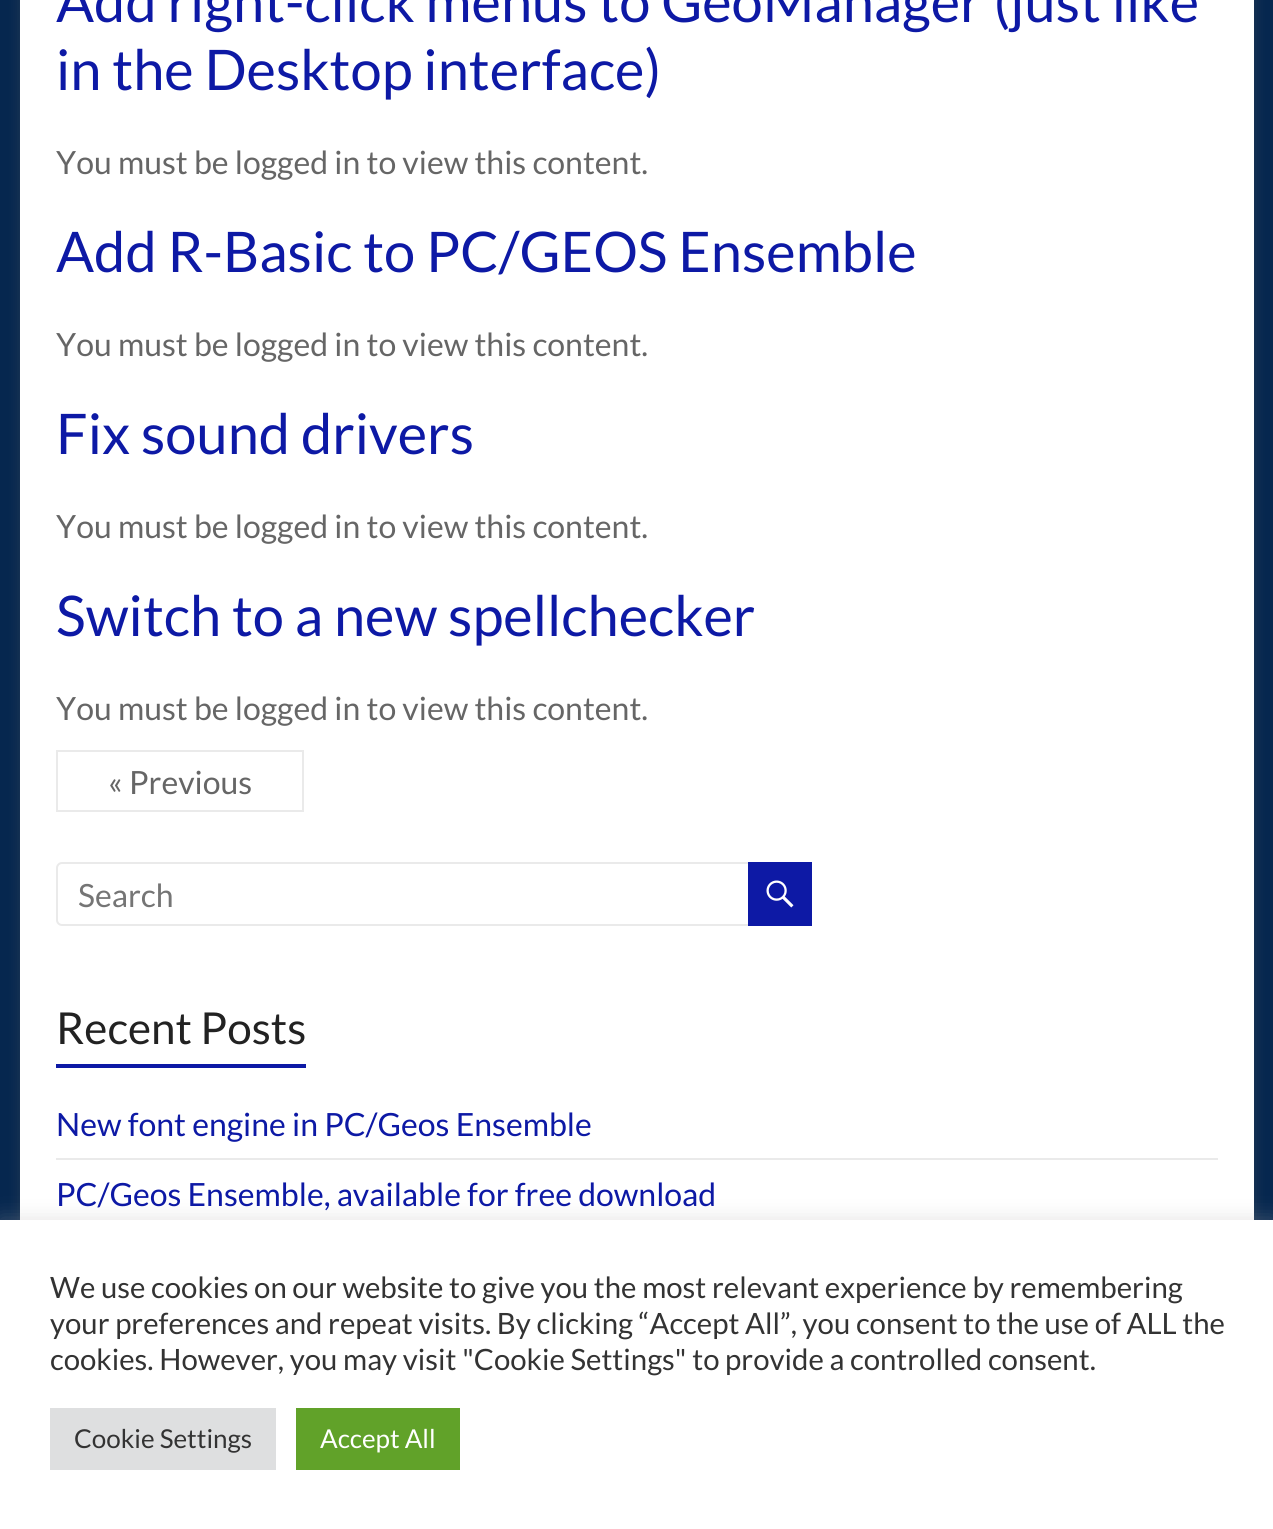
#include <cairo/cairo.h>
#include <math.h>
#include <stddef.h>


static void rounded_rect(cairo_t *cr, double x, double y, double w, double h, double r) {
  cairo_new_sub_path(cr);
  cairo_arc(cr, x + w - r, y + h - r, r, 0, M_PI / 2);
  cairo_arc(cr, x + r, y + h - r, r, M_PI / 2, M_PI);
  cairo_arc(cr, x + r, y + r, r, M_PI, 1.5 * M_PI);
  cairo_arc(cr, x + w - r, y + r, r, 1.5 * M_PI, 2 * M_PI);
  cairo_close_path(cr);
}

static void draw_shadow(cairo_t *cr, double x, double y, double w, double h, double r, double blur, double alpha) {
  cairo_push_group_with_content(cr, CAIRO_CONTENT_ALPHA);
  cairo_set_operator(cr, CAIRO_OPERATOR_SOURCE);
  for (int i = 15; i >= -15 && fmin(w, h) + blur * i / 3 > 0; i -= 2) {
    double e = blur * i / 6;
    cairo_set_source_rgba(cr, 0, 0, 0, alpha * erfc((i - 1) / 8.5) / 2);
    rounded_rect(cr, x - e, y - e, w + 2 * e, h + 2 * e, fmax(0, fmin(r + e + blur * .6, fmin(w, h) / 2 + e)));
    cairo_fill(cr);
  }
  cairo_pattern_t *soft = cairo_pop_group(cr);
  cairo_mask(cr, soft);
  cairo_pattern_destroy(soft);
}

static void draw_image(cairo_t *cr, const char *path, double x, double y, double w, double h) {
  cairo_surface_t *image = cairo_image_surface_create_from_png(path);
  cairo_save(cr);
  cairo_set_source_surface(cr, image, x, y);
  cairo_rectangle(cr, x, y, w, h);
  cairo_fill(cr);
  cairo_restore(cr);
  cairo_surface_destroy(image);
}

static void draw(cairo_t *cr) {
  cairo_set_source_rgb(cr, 6 / 255.0, 39 / 255.0, 79 / 255.0);
  cairo_paint(cr);
  cairo_set_source_rgb(cr, 100 / 255.0, 100 / 255.0, 100 / 255.0);
  draw_shadow(cr, 20, -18, 1234, 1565, 0, 6, 0.3);
  cairo_set_source_rgb(cr, 1, 1, 1);
  cairo_rectangle(cr, 20, 0, 1234, 1220);
  cairo_fill(cr);
  cairo_rectangle(cr, 57, 751, 246, 60);
  cairo_set_source_rgb(cr, 234 / 255.0, 234 / 255.0, 234 / 255.0);
  cairo_stroke(cr);
  rounded_rect(cr, 57, 863, 696, 62, 5);
  cairo_stroke(cr);
  cairo_set_source_rgb(cr, 13 / 255.0, 25 / 255.0, 165 / 255.0);
  cairo_rectangle(cr, 748, 862, 64, 64);
  cairo_fill(cr);
  draw_image(cr, "images/1.png", 766, 880, 28, 28);
  cairo_rectangle(cr, 56, 1064, 250, 4);
  cairo_fill(cr);
  cairo_set_source_rgb(cr, 234 / 255.0, 234 / 255.0, 234 / 255.0);
  cairo_rectangle(cr, 56, 1158, 1162, 2);
  cairo_fill(cr);
  cairo_set_source_rgb(cr, 172 / 255.0, 171 / 255.0, 171 / 255.0);
  draw_shadow(cr, 0, 1218, 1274, 310, 0, 10, 0.3);
  cairo_set_source_rgb(cr, 1, 1, 1);
  cairo_rectangle(cr, 0, 1220, 1273, 309);
  cairo_fill(cr);
  cairo_set_source_rgb(cr, 222 / 255.0, 223 / 255.0, 224 / 255.0);
  cairo_rectangle(cr, 50, 1408, 226, 62);
  cairo_fill(cr);
  cairo_set_source_rgb(cr, 97 / 255.0, 162 / 255.0, 41 / 255.0);
  cairo_rectangle(cr, 296, 1408, 164, 62);
  cairo_fill(cr);
  cairo_select_font_face(cr, "Lato", CAIRO_FONT_SLANT_NORMAL, CAIRO_FONT_WEIGHT_NORMAL);
  cairo_set_font_size(cr, 56);
  cairo_set_source_rgb(cr, 13 / 255.0, 25 / 255.0, 165 / 255.0);
  cairo_move_to(cr, 56, 22);
  cairo_show_text(cr, "Add right-click menus to GeoManager (just like");
  cairo_move_to(cr, 56, 90);
  cairo_show_text(cr, "in the Desktop interface)");
  cairo_set_font_size(cr, 32);
  cairo_set_source_rgb(cr, 102 / 255.0, 102 / 255.0, 102 / 255.0);
  cairo_move_to(cr, 56, 174);
  cairo_show_text(cr, "You must be logged in to view this content.");
  cairo_set_font_size(cr, 56);
  cairo_set_source_rgb(cr, 13 / 255.0, 25 / 255.0, 165 / 255.0);
  cairo_move_to(cr, 56, 272);
  cairo_show_text(cr, "Add R-Basic to PC/GEOS Ensemble");
  cairo_set_font_size(cr, 32);
  cairo_set_source_rgb(cr, 102 / 255.0, 102 / 255.0, 102 / 255.0);
  cairo_move_to(cr, 56, 356);
  cairo_show_text(cr, "You must be logged in to view this content.");
  cairo_set_font_size(cr, 56);
  cairo_set_source_rgb(cr, 13 / 255.0, 25 / 255.0, 165 / 255.0);
  cairo_move_to(cr, 56, 454);
  cairo_show_text(cr, "Fix sound drivers");
  cairo_set_font_size(cr, 32);
  cairo_set_source_rgb(cr, 102 / 255.0, 102 / 255.0, 102 / 255.0);
  cairo_move_to(cr, 56, 538);
  cairo_show_text(cr, "You must be logged in to view this content.");
  cairo_set_font_size(cr, 56);
  cairo_set_source_rgb(cr, 13 / 255.0, 25 / 255.0, 165 / 255.0);
  cairo_move_to(cr, 56, 636);
  cairo_show_text(cr, "Switch to a new spellchecker");
  cairo_set_font_size(cr, 32);
  cairo_set_source_rgb(cr, 102 / 255.0, 102 / 255.0, 102 / 255.0);
  cairo_move_to(cr, 56, 720);
  cairo_show_text(cr, "You must be logged in to view this content.");
  cairo_move_to(cr, 108, 794);
  cairo_show_text(cr, "« Previous");
  cairo_set_source_rgb(cr, 117 / 255.0, 117 / 255.0, 117 / 255.0);
  cairo_move_to(cr, 78, 907);
  cairo_show_text(cr, "Search");
  cairo_set_font_size(cr, 44);
  cairo_set_source_rgb(cr, 34 / 255.0, 34 / 255.0, 34 / 255.0);
  cairo_move_to(cr, 56, 1044);
  cairo_show_text(cr, "Recent Posts");
  cairo_set_font_size(cr, 32);
  cairo_set_source_rgb(cr, 13 / 255.0, 25 / 255.0, 165 / 255.0);
  cairo_move_to(cr, 56, 1136);
  cairo_show_text(cr, "New font engine in PC/Geos Ensemble");
  cairo_move_to(cr, 56, 1206);
  cairo_show_text(cr, "PC/Geos Ensemble, available for free download");
  cairo_set_font_size(cr, 29.35);
  cairo_set_source_rgb(cr, 51 / 255.0, 51 / 255.0, 51 / 255.0);
  cairo_move_to(cr, 50, 1298);
  cairo_show_text(cr, "We use cookies on our website to give you the most relevant experience by remembering");
  cairo_move_to(cr, 50, 1334);
  cairo_show_text(cr, "your preferences and repeat visits. By clicking “Accept All”, you consent to the use of ALL the");
  cairo_move_to(cr, 50, 1370);
  cairo_show_text(cr, "cookies. However, you may visit \"Cookie Settings\" to provide a controlled consent.");
  cairo_set_font_size(cr, 26);
  cairo_move_to(cr, 74, 1448);
  cairo_show_text(cr, "Cookie Settings");
  cairo_set_source_rgb(cr, 1, 1, 1);
  cairo_move_to(cr, 320, 1448);
  cairo_show_text(cr, "Accept All");
}

int main(void) {
  cairo_surface_t *surface = cairo_image_surface_create(CAIRO_FORMAT_RGB24, 1273, 1529);
  cairo_t *cr = cairo_create(surface);
  cairo_font_options_t *options = cairo_font_options_create();
  cairo_font_options_set_hint_metrics(options, CAIRO_HINT_METRICS_OFF);
  cairo_font_options_set_hint_style(options, CAIRO_HINT_STYLE_NONE);
  cairo_set_font_options(cr, options);
  cairo_set_miter_limit(cr, 4);
  draw(cr);
  cairo_surface_write_to_png(surface, "out.png");
  cairo_font_options_destroy(options);
  cairo_destroy(cr);
  cairo_surface_destroy(surface);
  return 0;
}
